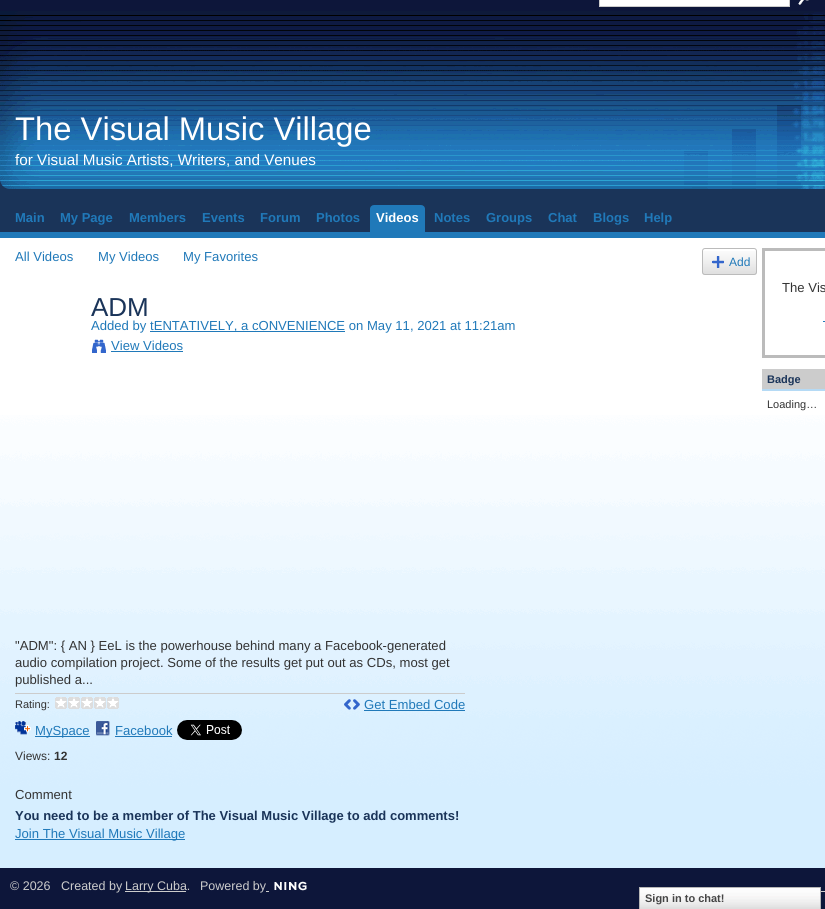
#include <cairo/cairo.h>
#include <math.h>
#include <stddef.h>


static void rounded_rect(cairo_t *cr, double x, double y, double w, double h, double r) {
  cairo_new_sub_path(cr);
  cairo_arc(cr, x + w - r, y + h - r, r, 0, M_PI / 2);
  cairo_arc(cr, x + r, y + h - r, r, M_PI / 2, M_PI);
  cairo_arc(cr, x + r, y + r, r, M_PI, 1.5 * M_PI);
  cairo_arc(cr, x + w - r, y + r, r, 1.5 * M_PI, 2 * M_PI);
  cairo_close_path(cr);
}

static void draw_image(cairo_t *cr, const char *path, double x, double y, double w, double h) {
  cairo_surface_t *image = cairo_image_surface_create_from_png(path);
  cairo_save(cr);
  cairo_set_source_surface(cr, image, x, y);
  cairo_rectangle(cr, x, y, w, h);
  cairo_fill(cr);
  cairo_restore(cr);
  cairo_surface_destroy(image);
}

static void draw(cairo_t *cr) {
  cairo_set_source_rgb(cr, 26 / 255.0, 52 / 255.0, 89 / 255.0);
  cairo_paint(cr);
  cairo_set_source_rgb(cr, 13 / 255.0, 22 / 255.0, 58 / 255.0);
  cairo_rectangle(cr, 0, 0, 825, 11);
  cairo_fill(cr);
  cairo_set_source_rgb(cr, 1, 1, 1);
  cairo_rectangle(cr, 599, 0, 191, 6);
  cairo_fill(cr);
  cairo_set_source_rgb(cr, 204 / 255.0, 204 / 255.0, 204 / 255.0);
  cairo_rectangle(cr, 789, 0, 1, 7);
  cairo_fill(cr);
  cairo_rectangle(cr, 599, 6, 191, 1);
  cairo_fill(cr);
  cairo_rectangle(cr, 599, 0, 1, 7);
  cairo_fill(cr);
  draw_image(cr, "images/1.png", 798, 0, 11, 5);
  draw_image(cr, "images/2.png", 0, 11, 825, 178);
  cairo_set_source_rgb(cr, 32 / 255.0, 121 / 255.0, 185 / 255.0);
  cairo_rectangle(cr, 0, 232, 825, 6);
  cairo_fill(cr);
  cairo_rectangle(cr, 370, 205, 55, 27);
  cairo_fill(cr);
  draw_image(cr, "images/3.png", 370, 205, 4, 4);
  draw_image(cr, "images/4.png", 421, 205, 4, 4);
  cairo_set_source_rgb(cr, 1, 1, 1);
  cairo_rectangle(cr, 0, 238, 825, 177);
  cairo_fill(cr);
  draw_image(cr, "images/5.png", 0, 415, 825, 453);
  draw_image(cr, "images/6.png", 702, 251, 55, 24);
  rounded_rect(cr, 702.5, 248.5, 54, 26, 2.5);
  cairo_set_source_rgb(cr, 187 / 255.0, 187 / 255.0, 187 / 255.0);
  cairo_set_line_width(cr, 1);
  cairo_stroke(cr);
  draw_image(cr, "images/7.png", 712, 256, 12, 12);
  cairo_set_source_rgb(cr, 32 / 255.0, 121 / 255.0, 185 / 255.0);
  cairo_rectangle(cr, 150, 331, 195, 1);
  cairo_fill(cr);
  draw_image(cr, "images/8.png", 92, 339, 14, 14);
  cairo_rectangle(cr, 111, 351, 72, 1);
  cairo_fill(cr);
  cairo_set_source_rgb(cr, 204 / 255.0, 204 / 255.0, 204 / 255.0);
  cairo_rectangle(cr, 15, 693, 450, 1);
  cairo_fill(cr);
  draw_image(cr, "images/9.png", 55, 697, 64, 12);
  draw_image(cr, "images/10.png", 15, 721, 16, 14);
  cairo_set_source_rgb(cr, 32 / 255.0, 121 / 255.0, 185 / 255.0);
  cairo_rectangle(cr, 35, 736, 55, 1);
  cairo_fill(cr);
  draw_image(cr, "images/11.png", 96, 721, 14, 15);
  cairo_rectangle(cr, 115, 736, 57, 1);
  cairo_fill(cr);
  draw_image(cr, "images/12.png", 177, 720, 65, 20);
  draw_image(cr, "images/13.png", 344, 699, 16, 11);
  cairo_rectangle(cr, 364, 710, 101, 1);
  cairo_fill(cr);
  cairo_rectangle(cr, 15, 839, 170, 1);
  cairo_fill(cr);
  cairo_rectangle(cr, 763.5, 249.5, 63, 107);
  cairo_set_source_rgb(cr, 187 / 255.0, 187 / 255.0, 187 / 255.0);
  cairo_set_line_width(cr, 3);
  cairo_stroke(cr);
  cairo_set_source_rgb(cr, 32 / 255.0, 121 / 255.0, 185 / 255.0);
  cairo_rectangle(cr, 823, 321, 2, 1);
  cairo_fill(cr);
  cairo_set_source_rgb(cr, 204 / 255.0, 204 / 255.0, 204 / 255.0);
  cairo_rectangle(cr, 762, 369, 63, 20);
  cairo_fill(cr);
  cairo_set_source_rgb(cr, 181 / 255.0, 218 / 255.0, 245 / 255.0);
  cairo_rectangle(cr, 762, 389, 63, 2);
  cairo_fill(cr);
  cairo_set_source_rgb(cr, 13 / 255.0, 22 / 255.0, 58 / 255.0);
  cairo_rectangle(cr, 0, 868, 825, 41);
  cairo_fill(cr);
  cairo_set_source_rgb(cr, 204 / 255.0, 204 / 255.0, 204 / 255.0);
  cairo_rectangle(cr, 125, 891, 61, 1);
  cairo_fill(cr);
  draw_image(cr, "images/14.png", 274, 881, 33, 10);
  cairo_rectangle(cr, 266, 891, 3, 1);
  cairo_fill(cr);
  cairo_rectangle(cr, 821, 891, 4, 1);
  cairo_fill(cr);
  draw_image(cr, "images/15.png", 640, 888, 180, 21);
  cairo_rectangle(cr, 639.5, 887.5, 181, 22);
  cairo_set_source_rgb(cr, 183 / 255.0, 183 / 255.0, 183 / 255.0);
  cairo_set_line_width(cr, 1);
  cairo_stroke(cr);
  cairo_select_font_face(cr, "Liberation Sans", CAIRO_FONT_SLANT_NORMAL, CAIRO_FONT_WEIGHT_NORMAL);
  cairo_set_font_size(cr, 32.75);
  cairo_set_source_rgb(cr, 1, 1, 1);
  cairo_move_to(cr, 15, 140);
  cairo_show_text(cr, "The Visual Music Village");
  cairo_set_font_size(cr, 15.25);
  cairo_move_to(cr, 15, 165);
  cairo_show_text(cr, "for Visual Music Artists, Writers, and Venues");
  cairo_select_font_face(cr, "Liberation Sans", CAIRO_FONT_SLANT_NORMAL, CAIRO_FONT_WEIGHT_BOLD);
  cairo_set_font_size(cr, 13);
  cairo_set_source_rgb(cr, 32 / 255.0, 121 / 255.0, 185 / 255.0);
  cairo_move_to(cr, 15, 222);
  cairo_show_text(cr, "Main");
  cairo_move_to(cr, 60, 222);
  cairo_show_text(cr, "My Page");
  cairo_move_to(cr, 129, 222);
  cairo_show_text(cr, "Members");
  cairo_move_to(cr, 202, 222);
  cairo_show_text(cr, "Events");
  cairo_move_to(cr, 260, 222);
  cairo_show_text(cr, "Forum");
  cairo_move_to(cr, 316, 222);
  cairo_show_text(cr, "Photos");
  cairo_set_source_rgb(cr, 1, 1, 1);
  cairo_move_to(cr, 376, 222);
  cairo_show_text(cr, "Videos");
  cairo_set_source_rgb(cr, 32 / 255.0, 121 / 255.0, 185 / 255.0);
  cairo_move_to(cr, 434, 222);
  cairo_show_text(cr, "Notes");
  cairo_move_to(cr, 486, 222);
  cairo_show_text(cr, "Groups");
  cairo_move_to(cr, 548, 222);
  cairo_show_text(cr, "Chat");
  cairo_move_to(cr, 593, 222);
  cairo_show_text(cr, "Blogs");
  cairo_move_to(cr, 644, 222);
  cairo_show_text(cr, "Help");
  cairo_select_font_face(cr, "Liberation Sans", CAIRO_FONT_SLANT_NORMAL, CAIRO_FONT_WEIGHT_NORMAL);
  cairo_set_font_size(cr, 13.1);
  cairo_move_to(cr, 15, 261);
  cairo_show_text(cr, "All Videos");
  cairo_move_to(cr, 98, 261);
  cairo_show_text(cr, "My Videos");
  cairo_move_to(cr, 183, 261);
  cairo_show_text(cr, "My Favorites");
  cairo_set_font_size(cr, 12);
  cairo_move_to(cr, 729, 266);
  cairo_show_text(cr, "Add");
  cairo_set_font_size(cr, 26);
  cairo_set_source_rgb(cr, 26 / 255.0, 52 / 255.0, 89 / 255.0);
  cairo_move_to(cr, 91, 316);
  cairo_show_text(cr, "ADM");
  cairo_set_font_size(cr, 13.1);
  cairo_set_source_rgb(cr, 32 / 255.0, 121 / 255.0, 185 / 255.0);
  cairo_move_to(cr, 91, 330);
  cairo_show_text(cr, "Added by");
  cairo_move_to(cr, 150, 330);
  cairo_show_text(cr, "tENTATIVELY, a cONVENIENCE on May 11, 2021 at 11:21am");
  cairo_move_to(cr, 111, 350);
  cairo_show_text(cr, "View Videos");
  cairo_set_source_rgb(cr, 51 / 255.0, 51 / 255.0, 51 / 255.0);
  cairo_move_to(cr, 15, 650);
  cairo_show_text(cr, "\"ADM\": { AN } EeL is the powerhouse behind many a Facebook-generated");
  cairo_move_to(cr, 15, 667);
  cairo_show_text(cr, "audio compilation project. Some of the results get put out as CDs, most get");
  cairo_move_to(cr, 15, 684);
  cairo_show_text(cr, "published a...");
  cairo_set_font_size(cr, 11);
  cairo_move_to(cr, 15, 708);
  cairo_show_text(cr, "Rating:");
  cairo_set_font_size(cr, 13.1);
  cairo_set_source_rgb(cr, 32 / 255.0, 121 / 255.0, 185 / 255.0);
  cairo_move_to(cr, 35, 735);
  cairo_show_text(cr, "MySpace");
  cairo_move_to(cr, 115, 735);
  cairo_show_text(cr, "Facebook");
  cairo_set_font_size(cr, 12);
  cairo_set_source_rgb(cr, 51 / 255.0, 51 / 255.0, 51 / 255.0);
  cairo_move_to(cr, 15, 760);
  cairo_show_text(cr, "Views:");
  cairo_select_font_face(cr, "Liberation Sans", CAIRO_FONT_SLANT_NORMAL, CAIRO_FONT_WEIGHT_BOLD);
  cairo_move_to(cr, 54, 760);
  cairo_show_text(cr, "12");
  cairo_select_font_face(cr, "Liberation Sans", CAIRO_FONT_SLANT_NORMAL, CAIRO_FONT_WEIGHT_NORMAL);
  cairo_set_font_size(cr, 13.1);
  cairo_set_source_rgb(cr, 32 / 255.0, 121 / 255.0, 185 / 255.0);
  cairo_move_to(cr, 364, 709);
  cairo_show_text(cr, "Get Embed Code");
  cairo_set_source_rgb(cr, 51 / 255.0, 51 / 255.0, 51 / 255.0);
  cairo_move_to(cr, 15, 799);
  cairo_show_text(cr, "Comment");
  cairo_select_font_face(cr, "Liberation Sans", CAIRO_FONT_SLANT_NORMAL, CAIRO_FONT_WEIGHT_BOLD);
  cairo_set_font_size(cr, 13);
  cairo_set_source_rgb(cr, 26 / 255.0, 52 / 255.0, 89 / 255.0);
  cairo_move_to(cr, 15, 820);
  cairo_show_text(cr, "You need to be a member of The Visual Music Village to add comments!");
  cairo_select_font_face(cr, "Liberation Sans", CAIRO_FONT_SLANT_NORMAL, CAIRO_FONT_WEIGHT_NORMAL);
  cairo_set_font_size(cr, 13.1);
  cairo_set_source_rgb(cr, 32 / 255.0, 121 / 255.0, 185 / 255.0);
  cairo_move_to(cr, 15, 838);
  cairo_show_text(cr, "Join The Visual Music Village");
  cairo_set_source_rgb(cr, 51 / 255.0, 51 / 255.0, 51 / 255.0);
  cairo_move_to(cr, 782, 292);
  cairo_show_text(cr, "The Vis");
  cairo_select_font_face(cr, "Liberation Sans", CAIRO_FONT_SLANT_NORMAL, CAIRO_FONT_WEIGHT_BOLD);
  cairo_set_font_size(cr, 11);
  cairo_set_source_rgb(cr, 26 / 255.0, 52 / 255.0, 89 / 255.0);
  cairo_move_to(cr, 767, 383);
  cairo_show_text(cr, "Badge");
  cairo_select_font_face(cr, "Liberation Sans", CAIRO_FONT_SLANT_NORMAL, CAIRO_FONT_WEIGHT_NORMAL);
  cairo_set_source_rgb(cr, 51 / 255.0, 51 / 255.0, 51 / 255.0);
  cairo_move_to(cr, 767, 408);
  cairo_show_text(cr, "Loading…");
  cairo_set_font_size(cr, 12.5);
  cairo_set_source_rgb(cr, 204 / 255.0, 204 / 255.0, 204 / 255.0);
  cairo_move_to(cr, 10, 890);
  cairo_show_text(cr, "© 2026");
  cairo_move_to(cr, 61, 890);
  cairo_show_text(cr, "Created by");
  cairo_move_to(cr, 125, 890);
  cairo_show_text(cr, "Larry Cuba.");
  cairo_move_to(cr, 200, 890);
  cairo_show_text(cr, "Powered by");
  cairo_select_font_face(cr, "Liberation Sans", CAIRO_FONT_SLANT_NORMAL, CAIRO_FONT_WEIGHT_BOLD);
  cairo_set_font_size(cr, 11);
  cairo_set_source_rgb(cr, 69 / 255.0, 69 / 255.0, 69 / 255.0);
  cairo_move_to(cr, 645, 902);
  cairo_show_text(cr, "Sign in to chat!");
}

int main(void) {
  cairo_surface_t *surface = cairo_image_surface_create(CAIRO_FORMAT_RGB24, 825, 909);
  cairo_t *cr = cairo_create(surface);
  cairo_font_options_t *options = cairo_font_options_create();
  cairo_font_options_set_hint_metrics(options, CAIRO_HINT_METRICS_OFF);
  cairo_font_options_set_hint_style(options, CAIRO_HINT_STYLE_NONE);
  cairo_set_font_options(cr, options);
  cairo_set_miter_limit(cr, 4);
  draw(cr);
  cairo_surface_write_to_png(surface, "out.png");
  cairo_font_options_destroy(options);
  cairo_destroy(cr);
  cairo_surface_destroy(surface);
  return 0;
}
